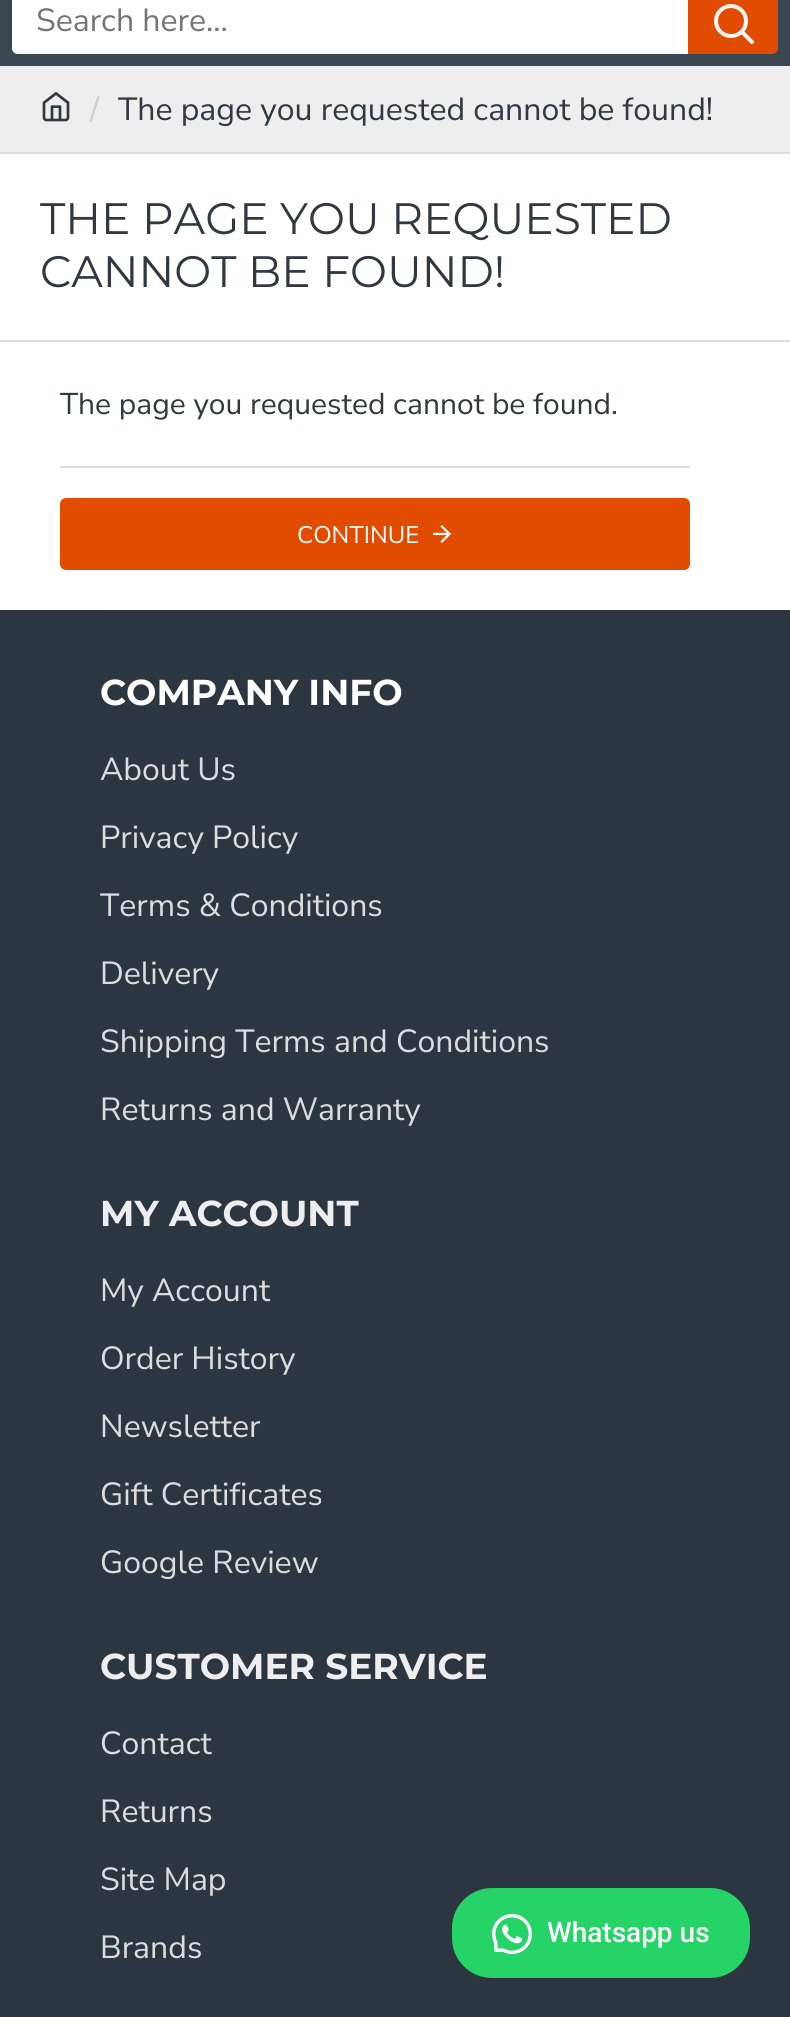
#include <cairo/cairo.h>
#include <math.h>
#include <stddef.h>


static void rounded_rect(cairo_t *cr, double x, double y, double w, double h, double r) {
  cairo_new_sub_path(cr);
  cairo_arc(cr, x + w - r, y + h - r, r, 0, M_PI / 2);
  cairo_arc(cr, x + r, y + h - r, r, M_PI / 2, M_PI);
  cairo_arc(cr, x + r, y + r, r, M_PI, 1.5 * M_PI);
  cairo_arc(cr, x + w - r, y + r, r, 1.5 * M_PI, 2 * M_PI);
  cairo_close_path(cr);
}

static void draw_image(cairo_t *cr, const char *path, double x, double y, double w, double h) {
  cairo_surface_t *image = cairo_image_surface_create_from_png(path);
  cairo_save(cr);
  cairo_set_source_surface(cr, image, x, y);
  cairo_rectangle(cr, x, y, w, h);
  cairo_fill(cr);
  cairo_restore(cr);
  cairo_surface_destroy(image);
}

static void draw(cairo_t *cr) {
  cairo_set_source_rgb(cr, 1, 1, 1);
  cairo_paint(cr);
  cairo_set_source_rgb(cr, 58 / 255.0, 71 / 255.0, 80 / 255.0);
  cairo_rectangle(cr, 0, 0, 790, 66);
  cairo_fill(cr);
  cairo_set_source_rgb(cr, 1, 1, 1);
  cairo_new_path(cr);
  cairo_move_to(cr, 18, -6);
  cairo_line_to(cr, 688, -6);
  cairo_line_to(cr, 688, 54);
  cairo_line_to(cr, 18, 54);
  cairo_curve_to(cr, 14.5, 54, 12, 51.5, 12, 48);
  cairo_line_to(cr, 12, 0);
  cairo_curve_to(cr, 12, -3.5, 14.5, -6, 18, -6);
  cairo_close_path(cr);
  cairo_fill(cr);
  cairo_set_source_rgb(cr, 225 / 255.0, 76 / 255.0, 0);
  cairo_new_path(cr);
  cairo_move_to(cr, 688, -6);
  cairo_line_to(cr, 772, -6);
  cairo_curve_to(cr, 775.5, -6, 778, -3.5, 778, 0);
  cairo_line_to(cr, 778, 48);
  cairo_curve_to(cr, 778, 51.5, 775.5, 54, 772, 54);
  cairo_line_to(cr, 688, 54);
  cairo_close_path(cr);
  cairo_fill(cr);
  draw_image(cr, "images/1.png", 714, 4, 40, 40);
  cairo_set_source_rgb(cr, 238 / 255.0, 238 / 255.0, 238 / 255.0);
  cairo_rectangle(cr, 0, 66, 790, 86);
  cairo_fill(cr);
  cairo_set_source_rgb(cr, 221 / 255.0, 221 / 255.0, 221 / 255.0);
  cairo_rectangle(cr, 0, 152, 790, 2);
  cairo_fill(cr);
  draw_image(cr, "images/2.png", 42, 92, 28, 30);
  cairo_rectangle(cr, 0, 340, 790, 2);
  cairo_fill(cr);
  cairo_rectangle(cr, 60, 466, 630, 2);
  cairo_fill(cr);
  cairo_set_source_rgb(cr, 225 / 255.0, 76 / 255.0, 0);
  rounded_rect(cr, 60, 498, 630, 72, 6);
  cairo_fill(cr);
  draw_image(cr, "images/3.png", 433, 525, 18, 18);
  cairo_set_source_rgb(cr, 44 / 255.0, 54 / 255.0, 64 / 255.0);
  cairo_rectangle(cr, 0, 610, 790, 1407);
  cairo_fill(cr);
  cairo_set_source_rgb(cr, 48 / 255.0, 56 / 255.0, 65 / 255.0);
  cairo_rectangle(cr, 100, 610, 590, 2);
  cairo_fill(cr);
  cairo_set_source_rgb(cr, 37 / 255.0, 211 / 255.0, 102 / 255.0);
  rounded_rect(cr, 452, 1888, 298, 90, 40);
  cairo_fill(cr);
  draw_image(cr, "images/4.png", 492, 1914, 40, 40);
  cairo_select_font_face(cr, "Nunito Sans", CAIRO_FONT_SLANT_NORMAL, CAIRO_FONT_WEIGHT_NORMAL);
  cairo_set_font_size(cr, 32);
  cairo_set_source_rgb(cr, 117 / 255.0, 117 / 255.0, 117 / 255.0);
  cairo_move_to(cr, 36, 31);
  cairo_show_text(cr, "Search here...");
  cairo_set_source_rgb(cr, 204 / 255.0, 204 / 255.0, 204 / 255.0);
  cairo_move_to(cr, 90, 120);
  cairo_show_text(cr, "/");
  cairo_set_source_rgb(cr, 48 / 255.0, 56 / 255.0, 65 / 255.0);
  cairo_move_to(cr, 118, 120);
  cairo_show_text(cr, "The page you requested cannot be found!");
  cairo_select_font_face(cr, "Montserrat", CAIRO_FONT_SLANT_NORMAL, CAIRO_FONT_WEIGHT_NORMAL);
  cairo_set_font_size(cr, 44);
  cairo_move_to(cr, 40, 234);
  cairo_show_text(cr, "THE PAGE YOU REQUESTED");
  cairo_move_to(cr, 40, 287);
  cairo_show_text(cr, "CANNOT BE FOUND!");
  cairo_select_font_face(cr, "Nunito Sans", CAIRO_FONT_SLANT_NORMAL, CAIRO_FONT_WEIGHT_NORMAL);
  cairo_set_font_size(cr, 30);
  cairo_move_to(cr, 60, 414);
  cairo_show_text(cr, "The page you requested cannot be found.");
  cairo_set_font_size(cr, 24);
  cairo_set_source_rgb(cr, 1, 1, 1);
  cairo_move_to(cr, 297, 543);
  cairo_show_text(cr, "CONTINUE");
  cairo_select_font_face(cr, "Montserrat", CAIRO_FONT_SLANT_NORMAL, CAIRO_FONT_WEIGHT_BOLD);
  cairo_set_font_size(cr, 36);
  cairo_move_to(cr, 100, 705);
  cairo_show_text(cr, "COMPANY INFO");
  cairo_select_font_face(cr, "Nunito Sans", CAIRO_FONT_SLANT_NORMAL, CAIRO_FONT_WEIGHT_NORMAL);
  cairo_set_font_size(cr, 32);
  cairo_set_source_rgb(cr, 221 / 255.0, 221 / 255.0, 221 / 255.0);
  cairo_move_to(cr, 100, 780);
  cairo_show_text(cr, "About Us");
  cairo_move_to(cr, 100, 848);
  cairo_show_text(cr, "Privacy Policy");
  cairo_move_to(cr, 100, 916);
  cairo_show_text(cr, "Terms & Conditions");
  cairo_move_to(cr, 100, 984);
  cairo_show_text(cr, "Delivery");
  cairo_move_to(cr, 100, 1052);
  cairo_show_text(cr, "Shipping Terms and Conditions");
  cairo_move_to(cr, 100, 1120);
  cairo_show_text(cr, "Returns and Warranty");
  cairo_select_font_face(cr, "Montserrat", CAIRO_FONT_SLANT_NORMAL, CAIRO_FONT_WEIGHT_BOLD);
  cairo_set_font_size(cr, 36);
  cairo_set_source_rgb(cr, 238 / 255.0, 238 / 255.0, 238 / 255.0);
  cairo_move_to(cr, 100, 1226);
  cairo_show_text(cr, "MY ACCOUNT");
  cairo_select_font_face(cr, "Nunito Sans", CAIRO_FONT_SLANT_NORMAL, CAIRO_FONT_WEIGHT_NORMAL);
  cairo_set_font_size(cr, 32);
  cairo_set_source_rgb(cr, 221 / 255.0, 221 / 255.0, 221 / 255.0);
  cairo_move_to(cr, 100, 1301);
  cairo_show_text(cr, "My Account");
  cairo_move_to(cr, 100, 1369);
  cairo_show_text(cr, "Order History");
  cairo_move_to(cr, 100, 1437);
  cairo_show_text(cr, "Newsletter");
  cairo_move_to(cr, 100, 1505);
  cairo_show_text(cr, "Gift Certificates");
  cairo_move_to(cr, 100, 1573);
  cairo_show_text(cr, "Google Review");
  cairo_select_font_face(cr, "Montserrat", CAIRO_FONT_SLANT_NORMAL, CAIRO_FONT_WEIGHT_BOLD);
  cairo_set_font_size(cr, 36);
  cairo_set_source_rgb(cr, 238 / 255.0, 238 / 255.0, 238 / 255.0);
  cairo_move_to(cr, 100, 1679);
  cairo_show_text(cr, "CUSTOMER SERVICE");
  cairo_select_font_face(cr, "Nunito Sans", CAIRO_FONT_SLANT_NORMAL, CAIRO_FONT_WEIGHT_NORMAL);
  cairo_set_font_size(cr, 32);
  cairo_set_source_rgb(cr, 221 / 255.0, 221 / 255.0, 221 / 255.0);
  cairo_move_to(cr, 100, 1754);
  cairo_show_text(cr, "Contact");
  cairo_move_to(cr, 100, 1822);
  cairo_show_text(cr, "Returns");
  cairo_move_to(cr, 100, 1890);
  cairo_show_text(cr, "Site Map");
  cairo_move_to(cr, 100, 1958);
  cairo_show_text(cr, "Brands");
  cairo_select_font_face(cr, "Roboto Medium", CAIRO_FONT_SLANT_NORMAL, CAIRO_FONT_WEIGHT_NORMAL);
  cairo_set_font_size(cr, 28);
  cairo_set_source_rgb(cr, 1, 1, 1);
  cairo_move_to(cr, 547, 1942);
  cairo_show_text(cr, "Whatsapp us");
}

int main(void) {
  cairo_surface_t *surface = cairo_image_surface_create(CAIRO_FORMAT_RGB24, 790, 2017);
  cairo_t *cr = cairo_create(surface);
  cairo_font_options_t *options = cairo_font_options_create();
  cairo_font_options_set_hint_metrics(options, CAIRO_HINT_METRICS_OFF);
  cairo_font_options_set_hint_style(options, CAIRO_HINT_STYLE_NONE);
  cairo_set_font_options(cr, options);
  cairo_set_miter_limit(cr, 4);
  draw(cr);
  cairo_surface_write_to_png(surface, "out.png");
  cairo_font_options_destroy(options);
  cairo_destroy(cr);
  cairo_surface_destroy(surface);
  return 0;
}
